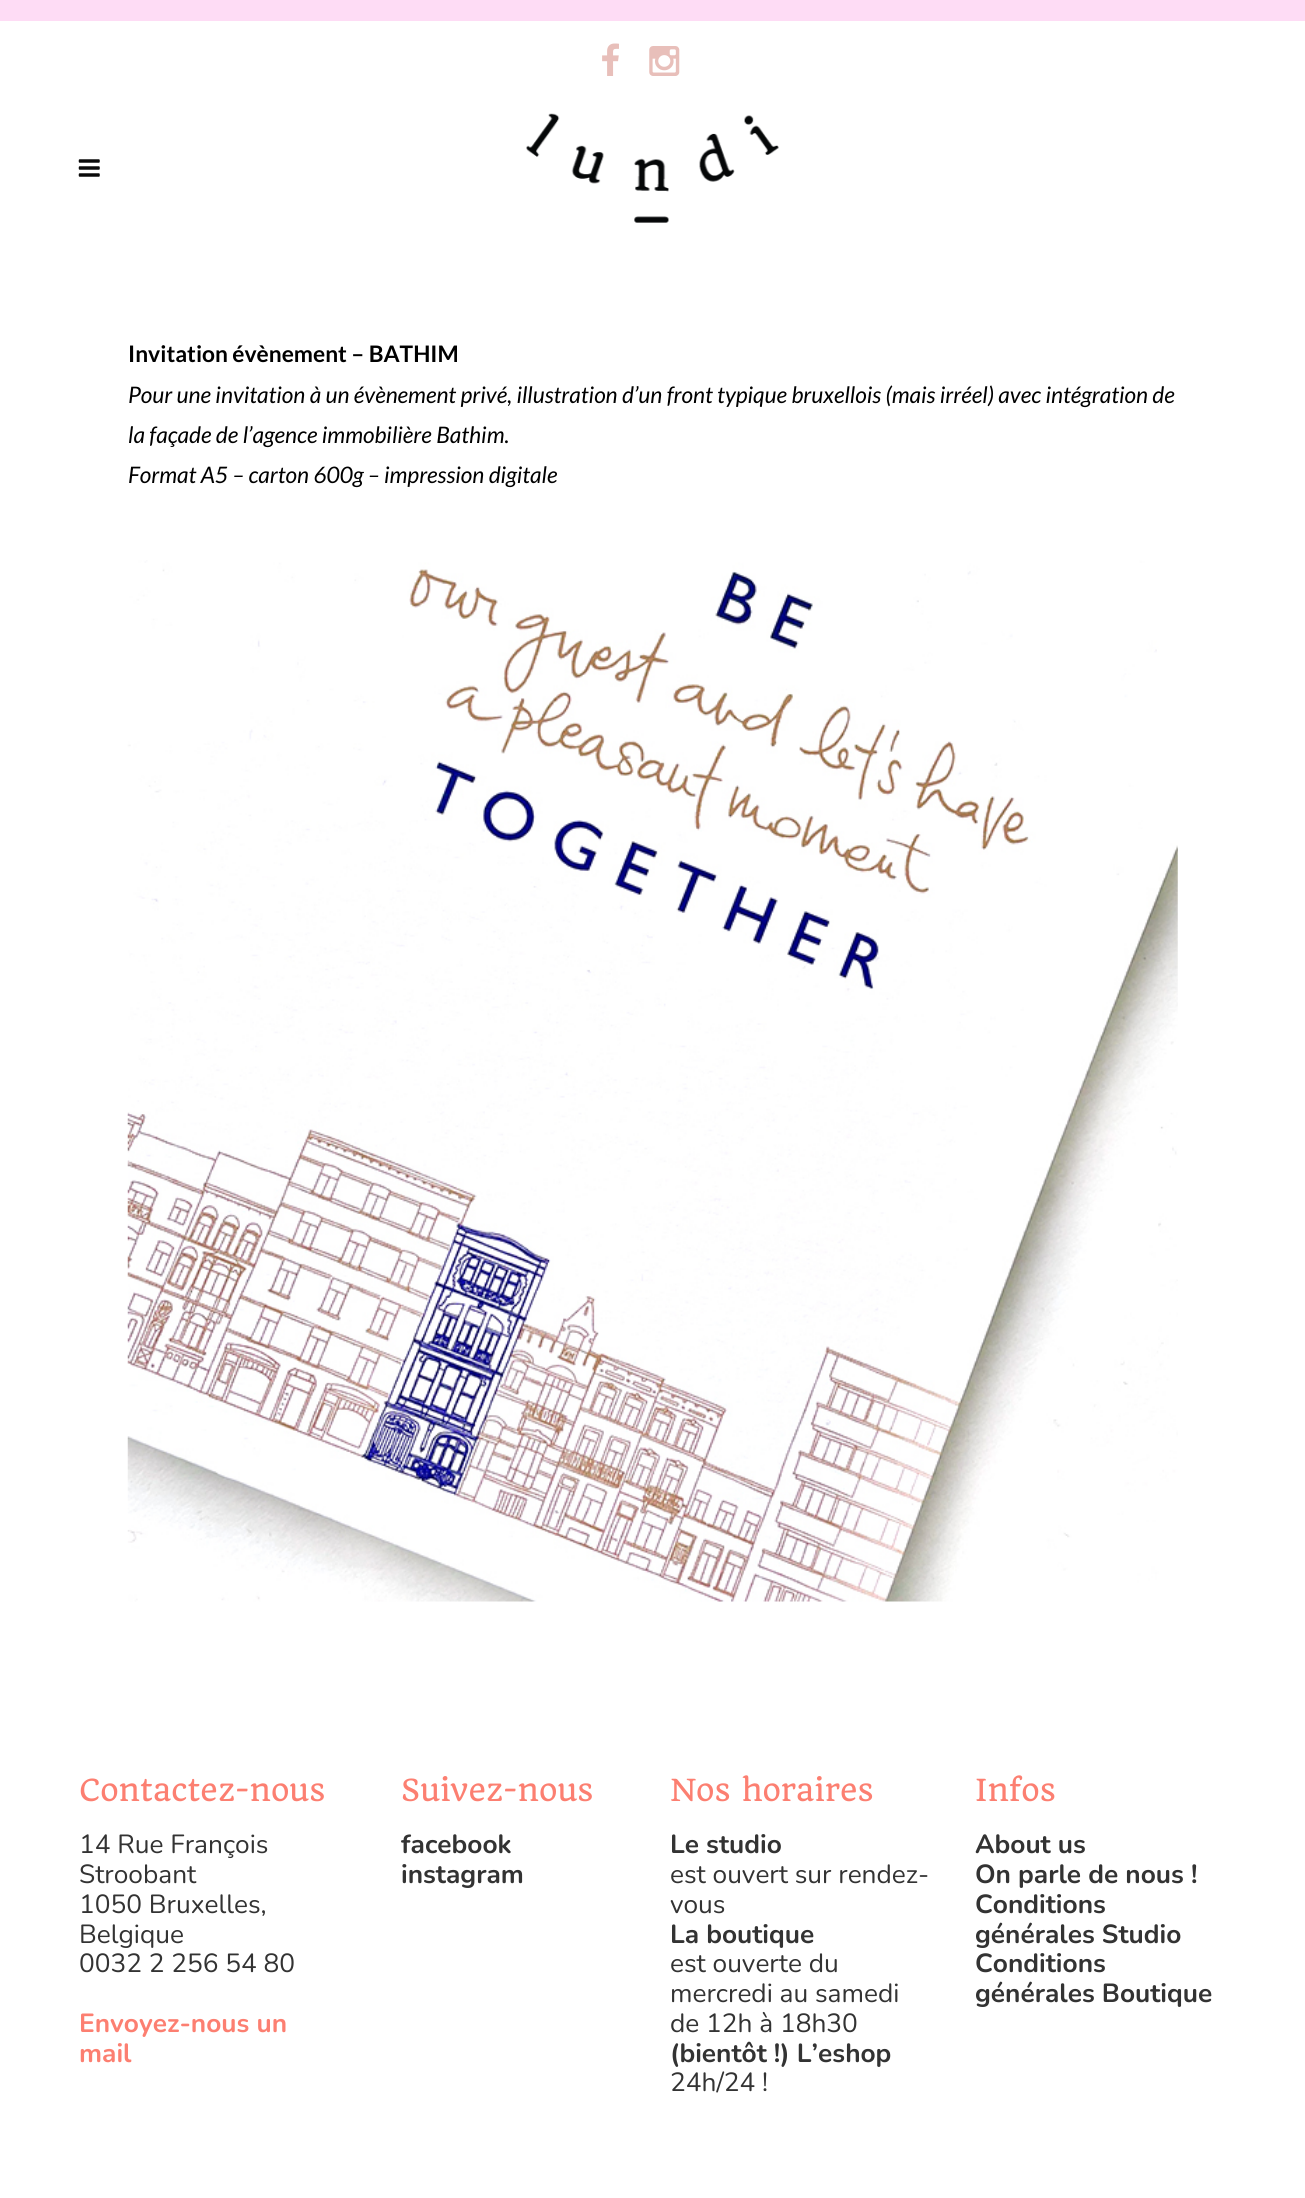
#include <cairo/cairo.h>
#include <math.h>
#include <stddef.h>


static void draw_image(cairo_t *cr, const char *path, double x, double y, double w, double h) {
  cairo_surface_t *image = cairo_image_surface_create_from_png(path);
  cairo_save(cr);
  cairo_set_source_surface(cr, image, x, y);
  cairo_rectangle(cr, x, y, w, h);
  cairo_fill(cr);
  cairo_restore(cr);
  cairo_surface_destroy(image);
}

static void draw(cairo_t *cr) {
  cairo_set_source_rgb(cr, 1, 1, 1);
  cairo_paint(cr);
  cairo_set_source_rgb(cr, 254 / 255.0, 220 / 255.0, 245 / 255.0);
  cairo_rectangle(cr, 0, 0, 1305, 21);
  cairo_fill(cr);
  draw_image(cr, "images/1.png", 602, 43, 17, 33);
  draw_image(cr, "images/2.png", 649, 46, 31, 30);
  draw_image(cr, "images/3.png", 78, 159, 22, 18);
  draw_image(cr, "images/4.png", 526, 113, 253, 110);
  draw_image(cr, "images/5.png", 127, 560, 1051, 1042);
  cairo_select_font_face(cr, "Lato", CAIRO_FONT_SLANT_NORMAL, CAIRO_FONT_WEIGHT_BOLD);
  cairo_set_font_size(cr, 22.75);
  cairo_set_source_rgb(cr, 0, 0, 0);
  cairo_move_to(cr, 128, 362);
  cairo_show_text(cr, "Invitation évènement – BATHIM");
  cairo_select_font_face(cr, "Lato", CAIRO_FONT_SLANT_ITALIC, CAIRO_FONT_WEIGHT_NORMAL);
  cairo_move_to(cr, 128, 403);
  cairo_show_text(cr, "Pour une invitation à un évènement privé, illustration d’un front typique bruxellois (mais irréel) avec intégration de");
  cairo_move_to(cr, 128, 443);
  cairo_show_text(cr, "la façade de l’agence immobilière Bathim.");
  cairo_move_to(cr, 128, 483);
  cairo_show_text(cr, "Format A5 – carton 600g – impression digitale");
  cairo_select_font_face(cr, "Quando", CAIRO_FONT_SLANT_NORMAL, CAIRO_FONT_WEIGHT_NORMAL);
  cairo_set_font_size(cr, 29.75);
  cairo_set_source_rgb(cr, 252 / 255.0, 127 / 255.0, 113 / 255.0);
  cairo_move_to(cr, 79, 1801);
  cairo_show_text(cr, "Contactez-nous");
  cairo_select_font_face(cr, "Nunito", CAIRO_FONT_SLANT_NORMAL, CAIRO_FONT_WEIGHT_NORMAL);
  cairo_set_font_size(cr, 26.25);
  cairo_set_source_rgb(cr, 51 / 255.0, 51 / 255.0, 51 / 255.0);
  cairo_move_to(cr, 79, 1853);
  cairo_show_text(cr, "14 Rue François");
  cairo_move_to(cr, 79, 1883);
  cairo_show_text(cr, "Stroobant");
  cairo_move_to(cr, 79, 1913);
  cairo_show_text(cr, "1050 Bruxelles,");
  cairo_move_to(cr, 79, 1943);
  cairo_show_text(cr, "Belgique");
  cairo_move_to(cr, 79, 1972);
  cairo_show_text(cr, "0032 2 256 54 80");
  cairo_select_font_face(cr, "Nunito", CAIRO_FONT_SLANT_NORMAL, CAIRO_FONT_WEIGHT_BOLD);
  cairo_set_source_rgb(cr, 252 / 255.0, 127 / 255.0, 113 / 255.0);
  cairo_move_to(cr, 79, 2032);
  cairo_show_text(cr, "Envoyez-nous un");
  cairo_move_to(cr, 79, 2062);
  cairo_show_text(cr, "mail");
  cairo_select_font_face(cr, "Quando", CAIRO_FONT_SLANT_NORMAL, CAIRO_FONT_WEIGHT_NORMAL);
  cairo_set_font_size(cr, 29.75);
  cairo_move_to(cr, 401, 1801);
  cairo_show_text(cr, "Suivez-nous");
  cairo_select_font_face(cr, "Nunito", CAIRO_FONT_SLANT_NORMAL, CAIRO_FONT_WEIGHT_BOLD);
  cairo_set_font_size(cr, 26.25);
  cairo_set_source_rgb(cr, 51 / 255.0, 51 / 255.0, 51 / 255.0);
  cairo_move_to(cr, 401, 1853);
  cairo_show_text(cr, "facebook");
  cairo_move_to(cr, 401, 1883);
  cairo_show_text(cr, "instagram");
  cairo_select_font_face(cr, "Quando", CAIRO_FONT_SLANT_NORMAL, CAIRO_FONT_WEIGHT_NORMAL);
  cairo_set_font_size(cr, 29.75);
  cairo_set_source_rgb(cr, 252 / 255.0, 127 / 255.0, 113 / 255.0);
  cairo_move_to(cr, 670, 1801);
  cairo_show_text(cr, "Nos horaires");
  cairo_select_font_face(cr, "Nunito", CAIRO_FONT_SLANT_NORMAL, CAIRO_FONT_WEIGHT_BOLD);
  cairo_set_font_size(cr, 26.25);
  cairo_set_source_rgb(cr, 51 / 255.0, 51 / 255.0, 51 / 255.0);
  cairo_move_to(cr, 670, 1853);
  cairo_show_text(cr, "Le studio");
  cairo_select_font_face(cr, "Nunito", CAIRO_FONT_SLANT_NORMAL, CAIRO_FONT_WEIGHT_NORMAL);
  cairo_move_to(cr, 670, 1883);
  cairo_show_text(cr, "est ouvert sur rendez-");
  cairo_move_to(cr, 670, 1913);
  cairo_show_text(cr, "vous");
  cairo_select_font_face(cr, "Nunito", CAIRO_FONT_SLANT_NORMAL, CAIRO_FONT_WEIGHT_BOLD);
  cairo_move_to(cr, 670, 1943);
  cairo_show_text(cr, "La boutique");
  cairo_select_font_face(cr, "Nunito", CAIRO_FONT_SLANT_NORMAL, CAIRO_FONT_WEIGHT_NORMAL);
  cairo_move_to(cr, 670, 1972);
  cairo_show_text(cr, "est ouverte du");
  cairo_move_to(cr, 670, 2002);
  cairo_show_text(cr, "mercredi au samedi");
  cairo_move_to(cr, 670, 2032);
  cairo_show_text(cr, "de 12h à 18h30");
  cairo_select_font_face(cr, "Nunito", CAIRO_FONT_SLANT_NORMAL, CAIRO_FONT_WEIGHT_BOLD);
  cairo_move_to(cr, 670, 2062);
  cairo_show_text(cr, "(bientôt !) L’eshop");
  cairo_select_font_face(cr, "Nunito", CAIRO_FONT_SLANT_NORMAL, CAIRO_FONT_WEIGHT_NORMAL);
  cairo_move_to(cr, 670, 2091);
  cairo_show_text(cr, "24h/24 !");
  cairo_select_font_face(cr, "Quando", CAIRO_FONT_SLANT_NORMAL, CAIRO_FONT_WEIGHT_NORMAL);
  cairo_set_font_size(cr, 29.75);
  cairo_set_source_rgb(cr, 252 / 255.0, 127 / 255.0, 113 / 255.0);
  cairo_move_to(cr, 975, 1801);
  cairo_show_text(cr, "Infos");
  cairo_select_font_face(cr, "Nunito", CAIRO_FONT_SLANT_NORMAL, CAIRO_FONT_WEIGHT_BOLD);
  cairo_set_font_size(cr, 26.25);
  cairo_set_source_rgb(cr, 51 / 255.0, 51 / 255.0, 51 / 255.0);
  cairo_move_to(cr, 975, 1853);
  cairo_show_text(cr, "About us");
  cairo_move_to(cr, 975, 1883);
  cairo_show_text(cr, "On parle de nous !");
  cairo_move_to(cr, 975, 1913);
  cairo_show_text(cr, "Conditions");
  cairo_move_to(cr, 975, 1943);
  cairo_show_text(cr, "générales Studio");
  cairo_move_to(cr, 975, 1972);
  cairo_show_text(cr, "Conditions");
  cairo_move_to(cr, 975, 2002);
  cairo_show_text(cr, "générales Boutique");
}

int main(void) {
  cairo_surface_t *surface = cairo_image_surface_create(CAIRO_FORMAT_RGB24, 1305, 2198);
  cairo_t *cr = cairo_create(surface);
  cairo_font_options_t *options = cairo_font_options_create();
  cairo_font_options_set_hint_metrics(options, CAIRO_HINT_METRICS_OFF);
  cairo_font_options_set_hint_style(options, CAIRO_HINT_STYLE_NONE);
  cairo_set_font_options(cr, options);
  cairo_set_miter_limit(cr, 4);
  draw(cr);
  cairo_surface_write_to_png(surface, "out.png");
  cairo_font_options_destroy(options);
  cairo_destroy(cr);
  cairo_surface_destroy(surface);
  return 0;
}
